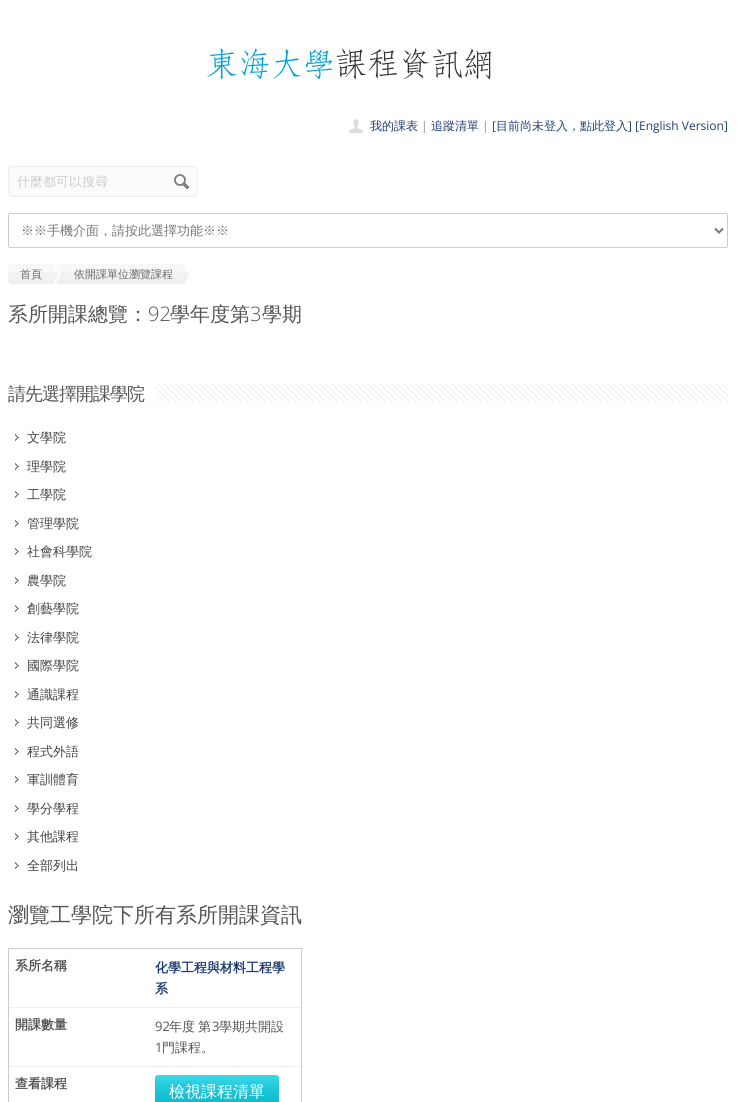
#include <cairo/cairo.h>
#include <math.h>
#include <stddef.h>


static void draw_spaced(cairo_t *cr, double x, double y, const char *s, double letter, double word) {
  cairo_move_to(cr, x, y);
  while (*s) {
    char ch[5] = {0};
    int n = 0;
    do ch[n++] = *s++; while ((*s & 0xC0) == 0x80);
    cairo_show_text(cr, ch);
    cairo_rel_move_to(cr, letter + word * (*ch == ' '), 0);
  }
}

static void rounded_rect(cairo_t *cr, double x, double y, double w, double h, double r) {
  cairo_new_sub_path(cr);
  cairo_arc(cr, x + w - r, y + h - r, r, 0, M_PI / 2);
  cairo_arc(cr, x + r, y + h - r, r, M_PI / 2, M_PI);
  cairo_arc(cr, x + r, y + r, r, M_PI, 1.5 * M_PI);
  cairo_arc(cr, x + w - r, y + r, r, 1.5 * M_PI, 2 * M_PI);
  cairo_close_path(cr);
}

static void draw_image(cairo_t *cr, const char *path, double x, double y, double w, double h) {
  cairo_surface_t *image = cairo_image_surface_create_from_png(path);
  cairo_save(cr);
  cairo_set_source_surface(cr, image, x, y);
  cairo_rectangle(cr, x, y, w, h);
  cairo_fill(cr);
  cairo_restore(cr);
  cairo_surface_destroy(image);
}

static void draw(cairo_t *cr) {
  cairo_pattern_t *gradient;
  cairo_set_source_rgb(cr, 1, 1, 1);
  cairo_paint(cr);
  draw_image(cr, "images/1.png", 207, 48, 284, 32);
  draw_image(cr, "images/2.png", 349, 119, 14, 14);
  cairo_set_source_rgb(cr, 251 / 255.0, 251 / 255.0, 251 / 255.0);
  rounded_rect(cr, 8.5, 166.5, 189, 30, 3.5);
  cairo_fill_preserve(cr);
  cairo_set_source_rgb(cr, 238 / 255.0, 238 / 255.0, 238 / 255.0);
  cairo_set_line_width(cr, 1);
  cairo_stroke(cr);
  draw_image(cr, "images/3.png", 174, 174, 15, 15);
  rounded_rect(cr, 8.5, 213.5, 719, 34, 1.5);
  cairo_set_source_rgb(cr, 204 / 255.0, 204 / 255.0, 204 / 255.0);
  cairo_stroke(cr);
  cairo_new_path(cr);
  cairo_move_to(cr, 715, 228.5);
  cairo_line_to(cr, 719, 232.5);
  cairo_line_to(cr, 723, 228.5);
  cairo_set_source_rgb(cr, 119 / 255.0, 119 / 255.0, 119 / 255.0);
  cairo_set_line_width(cr, 2);
  cairo_stroke(cr);
  cairo_set_source_rgb(cr, 248 / 255.0, 248 / 255.0, 248 / 255.0);
  cairo_new_path(cr);
  cairo_move_to(cr, 12, 264);
  cairo_line_to(cr, 62, 264);
  cairo_line_to(cr, 62, 284);
  cairo_line_to(cr, 12, 284);
  cairo_curve_to(cr, 10, 284, 8, 282, 8, 280);
  cairo_line_to(cr, 8, 268);
  cairo_curve_to(cr, 8, 266, 10, 264, 12, 264);
  cairo_close_path(cr);
  cairo_fill(cr);
  draw_image(cr, "images/4.png", 8, 272, 54, 12);
  draw_image(cr, "images/5.png", 53, 264, 8, 20);
  cairo_rectangle(cr, 62, 264, 129, 20);
  cairo_fill(cr);
  draw_image(cr, "images/6.png", 62, 272, 129, 12);
  draw_image(cr, "images/7.png", 184, 264, 9, 20);
  draw_image(cr, "images/8.png", 156, 384, 572, 18);
  draw_image(cr, "images/9.png", 15, 434, 4, 7);
  draw_image(cr, "images/9.png", 15, 463, 4, 7);
  draw_image(cr, "images/9.png", 15, 491, 4, 7);
  draw_image(cr, "images/9.png", 15, 520, 4, 7);
  draw_image(cr, "images/9.png", 15, 548, 4, 7);
  draw_image(cr, "images/9.png", 15, 577, 4, 7);
  draw_image(cr, "images/9.png", 15, 605, 4, 7);
  draw_image(cr, "images/9.png", 15, 634, 4, 7);
  draw_image(cr, "images/9.png", 15, 662, 4, 7);
  draw_image(cr, "images/9.png", 15, 691, 4, 7);
  draw_image(cr, "images/9.png", 15, 719, 4, 7);
  draw_image(cr, "images/9.png", 15, 748, 4, 7);
  draw_image(cr, "images/9.png", 15, 776, 4, 7);
  draw_image(cr, "images/9.png", 15, 805, 4, 7);
  draw_image(cr, "images/9.png", 15, 833, 4, 7);
  draw_image(cr, "images/9.png", 15, 862, 4, 7);
  cairo_rectangle(cr, 8.5, 948.5, 293, 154);
  cairo_set_source_rgb(cr, 204 / 255.0, 204 / 255.0, 204 / 255.0);
  cairo_set_line_width(cr, 1);
  cairo_stroke(cr);
  cairo_set_source_rgb(cr, 238 / 255.0, 238 / 255.0, 238 / 255.0);
  cairo_rectangle(cr, 9, 1007, 292, 1);
  cairo_fill(cr);
  cairo_rectangle(cr, 9, 1066, 292, 1);
  cairo_fill(cr);
  cairo_set_source_rgb(cr, 10 / 255.0, 209 / 255.0, 229 / 255.0);
  rounded_rect(cr, 155, 1075, 124, 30, 3);
  cairo_fill(cr);
  gradient = cairo_pattern_create_linear(217, 1075, 217, 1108);
  cairo_pattern_add_color_stop_rgba(gradient, 0, 1, 1, 1, 0.2);
  cairo_pattern_add_color_stop_rgba(gradient, 1, 0, 0, 0, 0.1);
  cairo_set_source(cr, gradient);
  cairo_pattern_destroy(gradient);
  rounded_rect(cr, 155, 1075, 124, 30, 3);
  cairo_fill(cr);
  cairo_select_font_face(cr, "WenQuanYi Zen Hei Medium", CAIRO_FONT_SLANT_NORMAL, CAIRO_FONT_WEIGHT_NORMAL);
  cairo_set_font_size(cr, 12);
  cairo_set_source_rgb(cr, 33 / 255.0, 62 / 255.0, 116 / 255.0);
  cairo_move_to(cr, 370, 130);
  cairo_show_text(cr, "我的課表");
  cairo_select_font_face(cr, "Open Sans", CAIRO_FONT_SLANT_NORMAL, CAIRO_FONT_WEIGHT_NORMAL);
  cairo_set_source_rgb(cr, 136 / 255.0, 136 / 255.0, 136 / 255.0);
  cairo_move_to(cr, 421, 130);
  cairo_show_text(cr, "|");
  cairo_select_font_face(cr, "WenQuanYi Zen Hei Medium", CAIRO_FONT_SLANT_NORMAL, CAIRO_FONT_WEIGHT_NORMAL);
  cairo_set_source_rgb(cr, 33 / 255.0, 62 / 255.0, 116 / 255.0);
  cairo_move_to(cr, 431, 130);
  cairo_show_text(cr, "追蹤清單");
  cairo_select_font_face(cr, "Open Sans", CAIRO_FONT_SLANT_NORMAL, CAIRO_FONT_WEIGHT_NORMAL);
  cairo_set_source_rgb(cr, 136 / 255.0, 136 / 255.0, 136 / 255.0);
  cairo_move_to(cr, 482, 130);
  cairo_show_text(cr, "|");
  cairo_set_source_rgb(cr, 33 / 255.0, 62 / 255.0, 116 / 255.0);
  cairo_move_to(cr, 492, 130);
  cairo_show_text(cr, "[");
  cairo_select_font_face(cr, "WenQuanYi Zen Hei Medium", CAIRO_FONT_SLANT_NORMAL, CAIRO_FONT_WEIGHT_NORMAL);
  cairo_move_to(cr, 496, 130);
  cairo_show_text(cr, "目前尚未登入，點此登入");
  cairo_select_font_face(cr, "Open Sans", CAIRO_FONT_SLANT_NORMAL, CAIRO_FONT_WEIGHT_NORMAL);
  cairo_move_to(cr, 628, 130);
  cairo_show_text(cr, "] [English Version]");
  cairo_select_font_face(cr, "WenQuanYi Zen Hei Medium", CAIRO_FONT_SLANT_NORMAL, CAIRO_FONT_WEIGHT_NORMAL);
  cairo_set_font_size(cr, 13);
  cairo_set_source_rgb(cr, 204 / 255.0, 204 / 255.0, 204 / 255.0);
  cairo_move_to(cr, 17, 186);
  cairo_show_text(cr, "什麼都可以搜尋");
  cairo_set_source_rgb(cr, 119 / 255.0, 119 / 255.0, 119 / 255.0);
  cairo_move_to(cr, 21, 235);
  cairo_show_text(cr, "※※手機介面，請按此選擇功能※※");
  cairo_set_font_size(cr, 11);
  cairo_set_source_rgb(cr, 102 / 255.0, 102 / 255.0, 102 / 255.0);
  cairo_move_to(cr, 20, 278);
  cairo_show_text(cr, "首頁");
  cairo_move_to(cr, 74, 278);
  cairo_show_text(cr, "依開課單位瀏覽課程");
  cairo_set_font_size(cr, 20);
  cairo_set_source_rgb(cr, 85 / 255.0, 85 / 255.0, 85 / 255.0);
  cairo_move_to(cr, 8, 321);
  cairo_show_text(cr, "系所開課總覽：");
  cairo_select_font_face(cr, "Open Sans Light", CAIRO_FONT_SLANT_NORMAL, CAIRO_FONT_WEIGHT_NORMAL);
  cairo_move_to(cr, 148, 321);
  cairo_show_text(cr, "92");
  cairo_select_font_face(cr, "WenQuanYi Zen Hei Medium", CAIRO_FONT_SLANT_NORMAL, CAIRO_FONT_WEIGHT_NORMAL);
  cairo_move_to(cr, 170, 321);
  cairo_show_text(cr, "學年度第");
  cairo_select_font_face(cr, "Open Sans Light", CAIRO_FONT_SLANT_NORMAL, CAIRO_FONT_WEIGHT_NORMAL);
  cairo_move_to(cr, 250, 321);
  cairo_show_text(cr, "3");
  cairo_select_font_face(cr, "WenQuanYi Zen Hei Medium", CAIRO_FONT_SLANT_NORMAL, CAIRO_FONT_WEIGHT_NORMAL);
  cairo_move_to(cr, 262, 321);
  cairo_show_text(cr, "學期");
  cairo_set_font_size(cr, 18);
  draw_spaced(cr, 8, 400, "請先選擇開課學院", -1, 0);
  cairo_set_font_size(cr, 13);
  cairo_set_source_rgb(cr, 68 / 255.0, 68 / 255.0, 68 / 255.0);
  cairo_move_to(cr, 27, 442);
  cairo_show_text(cr, "文學院");
  cairo_move_to(cr, 27, 471);
  cairo_show_text(cr, "理學院");
  cairo_move_to(cr, 27, 499);
  cairo_show_text(cr, "工學院");
  cairo_move_to(cr, 27, 528);
  cairo_show_text(cr, "管理學院");
  cairo_move_to(cr, 27, 556);
  cairo_show_text(cr, "社會科學院");
  cairo_move_to(cr, 27, 585);
  cairo_show_text(cr, "農學院");
  cairo_move_to(cr, 27, 613);
  cairo_show_text(cr, "創藝學院");
  cairo_move_to(cr, 27, 642);
  cairo_show_text(cr, "法律學院");
  cairo_move_to(cr, 27, 670);
  cairo_show_text(cr, "國際學院");
  cairo_move_to(cr, 27, 699);
  cairo_show_text(cr, "通識課程");
  cairo_move_to(cr, 27, 727);
  cairo_show_text(cr, "共同選修");
  cairo_move_to(cr, 27, 756);
  cairo_show_text(cr, "程式外語");
  cairo_move_to(cr, 27, 784);
  cairo_show_text(cr, "軍訓體育");
  cairo_move_to(cr, 27, 813);
  cairo_show_text(cr, "學分學程");
  cairo_move_to(cr, 27, 841);
  cairo_show_text(cr, "其他課程");
  cairo_move_to(cr, 27, 870);
  cairo_show_text(cr, "全部列出");
  cairo_set_font_size(cr, 21);
  cairo_set_source_rgb(cr, 85 / 255.0, 85 / 255.0, 85 / 255.0);
  cairo_move_to(cr, 8, 922);
  cairo_show_text(cr, "瀏覽工學院下所有系所開課資訊");
  cairo_select_font_face(cr, "WenQuanYi Zen Hei", CAIRO_FONT_SLANT_NORMAL, CAIRO_FONT_WEIGHT_BOLD);
  cairo_set_font_size(cr, 13);
  cairo_move_to(cr, 15, 970);
  cairo_show_text(cr, "系所名稱");
  cairo_set_source_rgb(cr, 33 / 255.0, 62 / 255.0, 116 / 255.0);
  cairo_move_to(cr, 155, 972);
  cairo_show_text(cr, "化學工程與材料工程學");
  cairo_move_to(cr, 155, 993);
  cairo_show_text(cr, "系");
  cairo_set_source_rgb(cr, 85 / 255.0, 85 / 255.0, 85 / 255.0);
  cairo_move_to(cr, 15, 1029);
  cairo_show_text(cr, "開課數量");
  cairo_select_font_face(cr, "Open Sans", CAIRO_FONT_SLANT_NORMAL, CAIRO_FONT_WEIGHT_NORMAL);
  cairo_move_to(cr, 155, 1031);
  cairo_show_text(cr, "92");
  cairo_select_font_face(cr, "WenQuanYi Zen Hei Medium", CAIRO_FONT_SLANT_NORMAL, CAIRO_FONT_WEIGHT_NORMAL);
  draw_spaced(cr, 169, 1031, "年度 第", 0, -1);
  cairo_select_font_face(cr, "Open Sans", CAIRO_FONT_SLANT_NORMAL, CAIRO_FONT_WEIGHT_NORMAL);
  cairo_move_to(cr, 212, 1031);
  cairo_show_text(cr, "3");
  cairo_select_font_face(cr, "WenQuanYi Zen Hei Medium", CAIRO_FONT_SLANT_NORMAL, CAIRO_FONT_WEIGHT_NORMAL);
  cairo_move_to(cr, 219, 1031);
  cairo_show_text(cr, "學期共開設");
  cairo_select_font_face(cr, "Open Sans", CAIRO_FONT_SLANT_NORMAL, CAIRO_FONT_WEIGHT_NORMAL);
  cairo_move_to(cr, 155, 1052);
  cairo_show_text(cr, "1");
  cairo_select_font_face(cr, "WenQuanYi Zen Hei Medium", CAIRO_FONT_SLANT_NORMAL, CAIRO_FONT_WEIGHT_NORMAL);
  cairo_move_to(cr, 162, 1052);
  cairo_show_text(cr, "門課程。");
  cairo_select_font_face(cr, "WenQuanYi Zen Hei", CAIRO_FONT_SLANT_NORMAL, CAIRO_FONT_WEIGHT_BOLD);
  cairo_move_to(cr, 15, 1088);
  cairo_show_text(cr, "查看課程");
  cairo_select_font_face(cr, "WenQuanYi Zen Hei Medium", CAIRO_FONT_SLANT_NORMAL, CAIRO_FONT_WEIGHT_NORMAL);
  cairo_set_font_size(cr, 16);
  cairo_set_source_rgb(cr, 1, 1, 1);
  cairo_move_to(cr, 169, 1097);
  cairo_show_text(cr, "檢視課程清單");
}

int main(void) {
  cairo_surface_t *surface = cairo_image_surface_create(CAIRO_FORMAT_RGB24, 750, 1102);
  cairo_t *cr = cairo_create(surface);
  cairo_font_options_t *options = cairo_font_options_create();
  cairo_font_options_set_hint_metrics(options, CAIRO_HINT_METRICS_OFF);
  cairo_font_options_set_hint_style(options, CAIRO_HINT_STYLE_NONE);
  cairo_set_font_options(cr, options);
  cairo_set_miter_limit(cr, 4);
  draw(cr);
  cairo_surface_write_to_png(surface, "out.png");
  cairo_font_options_destroy(options);
  cairo_destroy(cr);
  cairo_surface_destroy(surface);
  return 0;
}
